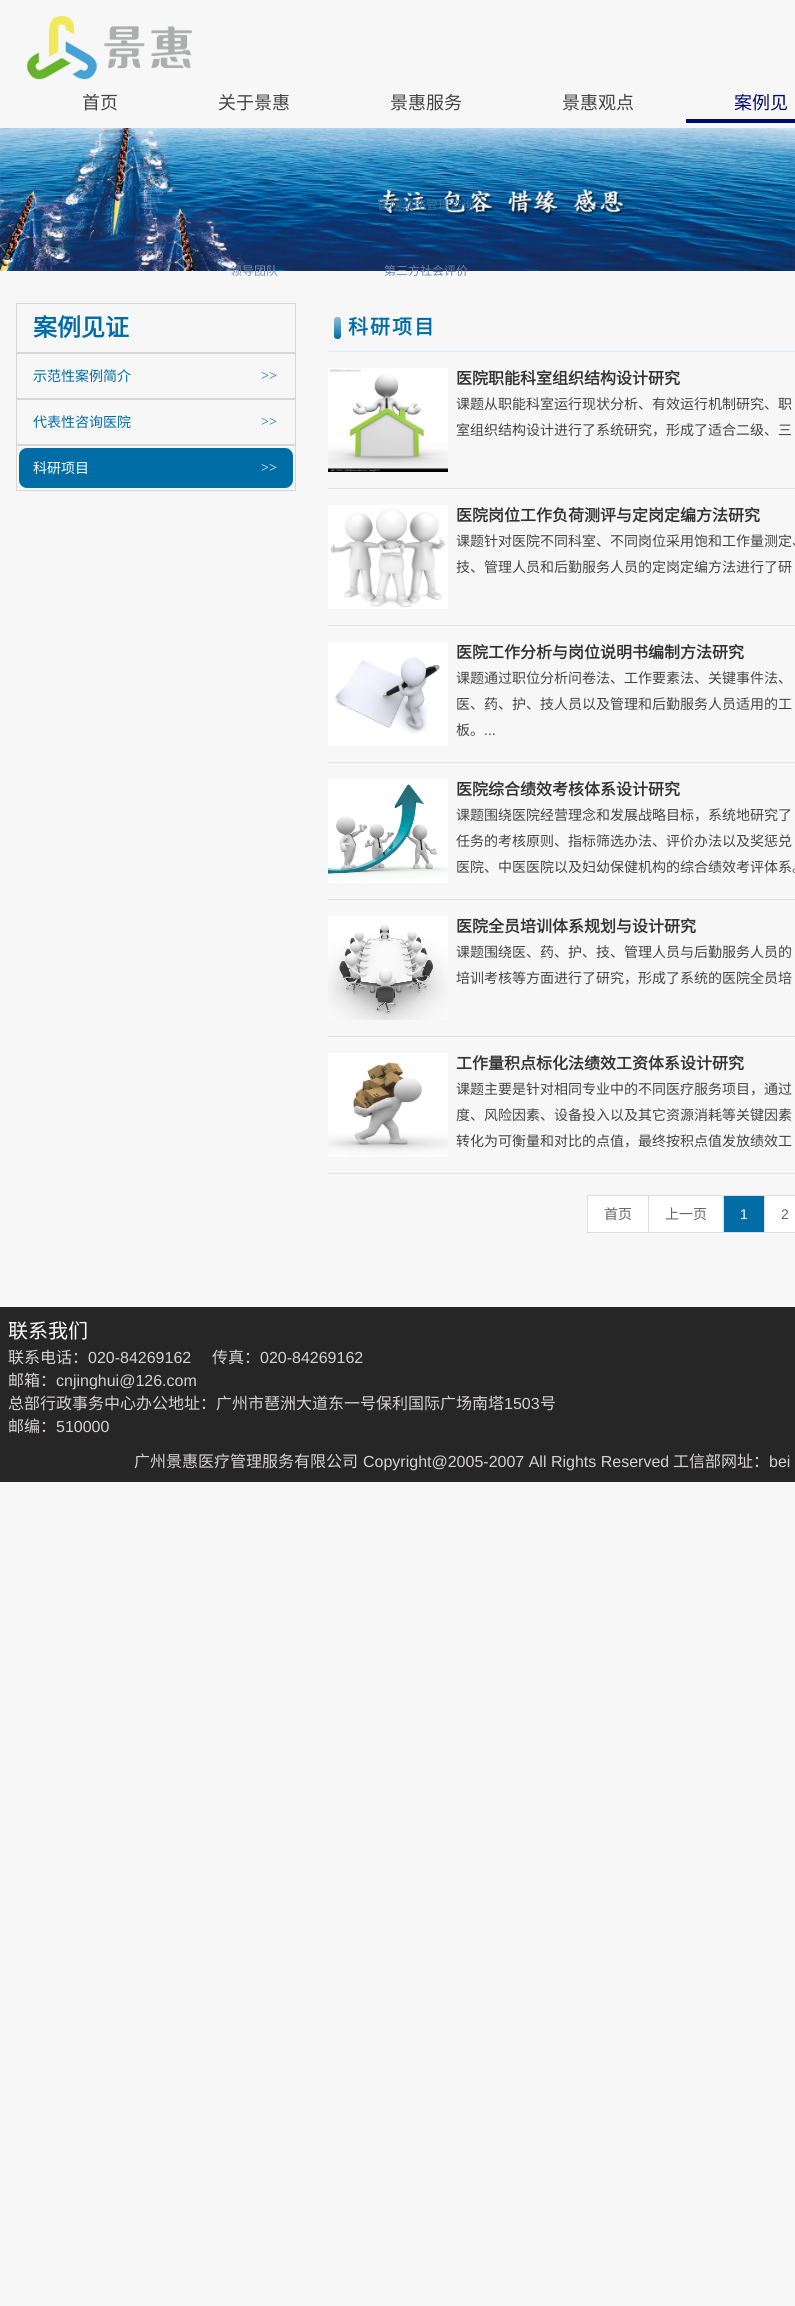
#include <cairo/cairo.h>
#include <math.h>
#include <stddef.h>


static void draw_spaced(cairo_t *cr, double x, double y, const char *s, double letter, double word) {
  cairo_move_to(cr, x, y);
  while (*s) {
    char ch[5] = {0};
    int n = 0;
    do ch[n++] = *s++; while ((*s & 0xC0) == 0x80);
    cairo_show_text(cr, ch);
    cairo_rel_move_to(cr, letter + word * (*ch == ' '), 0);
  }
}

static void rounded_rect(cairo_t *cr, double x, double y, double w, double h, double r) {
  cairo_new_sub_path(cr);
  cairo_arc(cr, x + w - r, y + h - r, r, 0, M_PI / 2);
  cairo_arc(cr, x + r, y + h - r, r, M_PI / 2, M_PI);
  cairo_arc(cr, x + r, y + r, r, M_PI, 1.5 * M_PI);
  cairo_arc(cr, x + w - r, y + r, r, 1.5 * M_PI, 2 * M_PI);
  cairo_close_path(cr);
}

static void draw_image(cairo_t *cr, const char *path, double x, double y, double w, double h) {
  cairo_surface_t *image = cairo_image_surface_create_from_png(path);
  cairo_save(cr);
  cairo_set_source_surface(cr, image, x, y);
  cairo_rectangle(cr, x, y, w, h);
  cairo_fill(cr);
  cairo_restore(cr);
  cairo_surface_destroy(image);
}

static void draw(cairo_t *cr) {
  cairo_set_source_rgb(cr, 247 / 255.0, 247 / 255.0, 247 / 255.0);
  cairo_paint(cr);
  draw_image(cr, "images/1.png", 26, 16, 166, 64);
  cairo_set_source_rgb(cr, 0, 9 / 255.0, 108 / 255.0);
  cairo_rectangle(cr, 686, 119, 109, 4);
  cairo_fill(cr);
  draw_image(cr, "images/2.png", 0, 128, 795, 143);
  cairo_rectangle(cr, 16.5, 303.5, 279, 49);
  cairo_set_source_rgb(cr, 214 / 255.0, 215 / 255.0, 215 / 255.0);
  cairo_set_line_width(cr, 1);
  cairo_stroke(cr);
  cairo_rectangle(cr, 16.5, 353.5, 279, 45);
  cairo_stroke(cr);
  cairo_rectangle(cr, 16.5, 399.5, 279, 45);
  cairo_stroke(cr);
  cairo_rectangle(cr, 16.5, 445.5, 279, 45);
  cairo_stroke(cr);
  cairo_set_source_rgb(cr, 0, 109 / 255.0, 166 / 255.0);
  rounded_rect(cr, 19, 448, 274, 40, 8);
  cairo_fill(cr);
  cairo_set_source_rgb(cr, 216 / 255.0, 237 / 255.0, 248 / 255.0);
  cairo_rectangle(cr, 328, 351, 467, 1);
  cairo_fill(cr);
  draw_image(cr, "images/3.png", 328, 312, 16, 32);
  cairo_set_source_rgb(cr, 225 / 255.0, 225 / 255.0, 225 / 255.0);
  cairo_rectangle(cr, 328, 488, 467, 1);
  cairo_fill(cr);
  draw_image(cr, "images/4.png", 328, 368, 120, 104);
  cairo_rectangle(cr, 328, 625, 467, 1);
  cairo_fill(cr);
  draw_image(cr, "images/5.png", 328, 505, 120, 104);
  cairo_rectangle(cr, 328, 762, 467, 1);
  cairo_fill(cr);
  draw_image(cr, "images/6.png", 328, 642, 120, 104);
  cairo_rectangle(cr, 328, 899, 467, 1);
  cairo_fill(cr);
  draw_image(cr, "images/7.png", 328, 779, 120, 104);
  cairo_rectangle(cr, 328, 1036, 467, 1);
  cairo_fill(cr);
  draw_image(cr, "images/8.png", 328, 916, 120, 104);
  cairo_rectangle(cr, 328, 1173, 467, 1);
  cairo_fill(cr);
  draw_image(cr, "images/9.png", 328, 1053, 120, 104);
  cairo_set_source_rgb(cr, 1, 1, 1);
  cairo_rectangle(cr, 587.5, 1195.5, 61, 37);
  cairo_fill_preserve(cr);
  cairo_set_source_rgb(cr, 221 / 255.0, 221 / 255.0, 221 / 255.0);
  cairo_stroke(cr);
  cairo_set_source_rgb(cr, 1, 1, 1);
  cairo_rectangle(cr, 649, 1196, 74, 36);
  cairo_fill(cr);
  cairo_set_source_rgb(cr, 221 / 255.0, 221 / 255.0, 221 / 255.0);
  cairo_rectangle(cr, 649, 1195, 146, 1);
  cairo_fill(cr);
  cairo_rectangle(cr, 723, 1195, 1, 38);
  cairo_fill(cr);
  cairo_rectangle(cr, 649, 1232, 75, 1);
  cairo_fill(cr);
  cairo_set_source_rgb(cr, 0, 109 / 255.0, 166 / 255.0);
  cairo_rectangle(cr, 724, 1196, 40, 36);
  cairo_fill(cr);
  cairo_set_source_rgb(cr, 221 / 255.0, 221 / 255.0, 221 / 255.0);
  cairo_rectangle(cr, 764, 1195, 1, 38);
  cairo_fill(cr);
  cairo_rectangle(cr, 724, 1232, 71, 1);
  cairo_fill(cr);
  cairo_set_source_rgb(cr, 1, 1, 1);
  cairo_rectangle(cr, 765, 1196, 30, 36);
  cairo_fill(cr);
  cairo_set_source_rgb(cr, 38 / 255.0, 38 / 255.0, 38 / 255.0);
  cairo_rectangle(cr, 0, 1307, 795, 175);
  cairo_fill(cr);
  cairo_select_font_face(cr, "Noto Sans CJK SC", CAIRO_FONT_SLANT_NORMAL, CAIRO_FONT_WEIGHT_NORMAL);
  cairo_set_font_size(cr, 18);
  cairo_set_source_rgb(cr, 68 / 255.0, 68 / 255.0, 68 / 255.0);
  cairo_move_to(cr, 82, 109);
  cairo_show_text(cr, "首页");
  cairo_move_to(cr, 218, 109);
  cairo_show_text(cr, "关于景惠");
  cairo_set_font_size(cr, 12);
  cairo_set_source_rgb(cr, 126 / 255.0, 143 / 255.0, 172 / 255.0);
  cairo_move_to(cr, 230, 275);
  cairo_show_text(cr, "领导团队");
  cairo_set_font_size(cr, 18);
  cairo_set_source_rgb(cr, 68 / 255.0, 68 / 255.0, 68 / 255.0);
  cairo_move_to(cr, 390, 109);
  cairo_show_text(cr, "景惠服务");
  cairo_set_font_size(cr, 12);
  cairo_set_source_rgb(cr, 65 / 255.0, 118 / 255.0, 159 / 255.0);
  cairo_move_to(cr, 378, 209);
  cairo_show_text(cr, "医院战略管理咨询");
  cairo_set_source_rgb(cr, 115 / 255.0, 131 / 255.0, 161 / 255.0);
  cairo_move_to(cr, 384, 275);
  cairo_show_text(cr, "第三方社会评价");
  cairo_set_font_size(cr, 18);
  cairo_set_source_rgb(cr, 68 / 255.0, 68 / 255.0, 68 / 255.0);
  cairo_move_to(cr, 562, 109);
  cairo_show_text(cr, "景惠观点");
  cairo_set_source_rgb(cr, 0, 9 / 255.0, 108 / 255.0);
  cairo_move_to(cr, 734, 109);
  cairo_show_text(cr, "案例见");
  cairo_select_font_face(cr, "Noto Sans CJK SC", CAIRO_FONT_SLANT_NORMAL, CAIRO_FONT_WEIGHT_BOLD);
  cairo_set_font_size(cr, 24);
  cairo_set_source_rgb(cr, 0, 109 / 255.0, 166 / 255.0);
  cairo_move_to(cr, 33, 336);
  cairo_show_text(cr, "案例见证");
  cairo_select_font_face(cr, "Noto Sans CJK SC", CAIRO_FONT_SLANT_NORMAL, CAIRO_FONT_WEIGHT_NORMAL);
  cairo_set_font_size(cr, 14);
  cairo_move_to(cr, 33, 381);
  cairo_show_text(cr, "示范性案例简介");
  cairo_select_font_face(cr, "Liberation Serif", CAIRO_FONT_SLANT_NORMAL, CAIRO_FONT_WEIGHT_NORMAL);
  cairo_move_to(cr, 261, 380);
  cairo_show_text(cr, ">>");
  cairo_select_font_face(cr, "Noto Sans CJK SC", CAIRO_FONT_SLANT_NORMAL, CAIRO_FONT_WEIGHT_NORMAL);
  cairo_move_to(cr, 33, 427);
  cairo_show_text(cr, "代表性咨询医院");
  cairo_select_font_face(cr, "Liberation Serif", CAIRO_FONT_SLANT_NORMAL, CAIRO_FONT_WEIGHT_NORMAL);
  cairo_move_to(cr, 261, 426);
  cairo_show_text(cr, ">>");
  cairo_select_font_face(cr, "Noto Sans CJK SC", CAIRO_FONT_SLANT_NORMAL, CAIRO_FONT_WEIGHT_NORMAL);
  cairo_set_source_rgb(cr, 1, 1, 1);
  cairo_move_to(cr, 33, 473);
  cairo_show_text(cr, "科研项目");
  cairo_select_font_face(cr, "Liberation Serif", CAIRO_FONT_SLANT_NORMAL, CAIRO_FONT_WEIGHT_NORMAL);
  cairo_move_to(cr, 261, 472);
  cairo_show_text(cr, ">>");
  cairo_select_font_face(cr, "Noto Sans CJK SC", CAIRO_FONT_SLANT_NORMAL, CAIRO_FONT_WEIGHT_BOLD);
  cairo_set_font_size(cr, 20);
  cairo_set_source_rgb(cr, 0, 109 / 255.0, 166 / 255.0);
  draw_spaced(cr, 348, 334, "科研项目", 2, 0);
  cairo_set_font_size(cr, 16);
  cairo_set_source_rgb(cr, 51 / 255.0, 51 / 255.0, 51 / 255.0);
  cairo_move_to(cr, 456, 384);
  cairo_show_text(cr, "医院职能科室组织结构设计研究");
  cairo_select_font_face(cr, "Noto Sans CJK SC", CAIRO_FONT_SLANT_NORMAL, CAIRO_FONT_WEIGHT_NORMAL);
  cairo_set_font_size(cr, 14);
  cairo_set_source_rgb(cr, 68 / 255.0, 68 / 255.0, 68 / 255.0);
  cairo_move_to(cr, 456, 409);
  cairo_show_text(cr, "课题从职能科室运行现状分析、有效运行机制研究、职");
  cairo_move_to(cr, 456, 435);
  cairo_show_text(cr, "室组织结构设计进行了系统研究，形成了适合二级、三");
  cairo_select_font_face(cr, "Noto Sans CJK SC", CAIRO_FONT_SLANT_NORMAL, CAIRO_FONT_WEIGHT_BOLD);
  cairo_set_font_size(cr, 16);
  cairo_set_source_rgb(cr, 51 / 255.0, 51 / 255.0, 51 / 255.0);
  cairo_move_to(cr, 456, 521);
  cairo_show_text(cr, "医院岗位工作负荷测评与定岗定编方法研究");
  cairo_select_font_face(cr, "Noto Sans CJK SC", CAIRO_FONT_SLANT_NORMAL, CAIRO_FONT_WEIGHT_NORMAL);
  cairo_set_font_size(cr, 14);
  cairo_set_source_rgb(cr, 68 / 255.0, 68 / 255.0, 68 / 255.0);
  cairo_move_to(cr, 456, 546);
  cairo_show_text(cr, "课题针对医院不同科室、不同岗位采用饱和工作量测定、");
  cairo_move_to(cr, 456, 572);
  cairo_show_text(cr, "技、管理人员和后勤服务人员的定岗定编方法进行了研");
  cairo_select_font_face(cr, "Noto Sans CJK SC", CAIRO_FONT_SLANT_NORMAL, CAIRO_FONT_WEIGHT_BOLD);
  cairo_set_font_size(cr, 16);
  cairo_set_source_rgb(cr, 51 / 255.0, 51 / 255.0, 51 / 255.0);
  cairo_move_to(cr, 456, 658);
  cairo_show_text(cr, "医院工作分析与岗位说明书编制方法研究");
  cairo_select_font_face(cr, "Noto Sans CJK SC", CAIRO_FONT_SLANT_NORMAL, CAIRO_FONT_WEIGHT_NORMAL);
  cairo_set_font_size(cr, 14);
  cairo_set_source_rgb(cr, 68 / 255.0, 68 / 255.0, 68 / 255.0);
  cairo_move_to(cr, 456, 683);
  cairo_show_text(cr, "课题通过职位分析问卷法、工作要素法、关键事件法、");
  cairo_move_to(cr, 456, 709);
  cairo_show_text(cr, "医、药、护、技人员以及管理和后勤服务人员适用的工");
  cairo_move_to(cr, 456, 735);
  cairo_show_text(cr, "板。");
  cairo_select_font_face(cr, "Liberation Sans", CAIRO_FONT_SLANT_NORMAL, CAIRO_FONT_WEIGHT_NORMAL);
  cairo_move_to(cr, 484, 735);
  cairo_show_text(cr, "...");
  cairo_select_font_face(cr, "Noto Sans CJK SC", CAIRO_FONT_SLANT_NORMAL, CAIRO_FONT_WEIGHT_BOLD);
  cairo_set_font_size(cr, 16);
  cairo_set_source_rgb(cr, 51 / 255.0, 51 / 255.0, 51 / 255.0);
  cairo_move_to(cr, 456, 795);
  cairo_show_text(cr, "医院综合绩效考核体系设计研究");
  cairo_select_font_face(cr, "Noto Sans CJK SC", CAIRO_FONT_SLANT_NORMAL, CAIRO_FONT_WEIGHT_NORMAL);
  cairo_set_font_size(cr, 14);
  cairo_set_source_rgb(cr, 68 / 255.0, 68 / 255.0, 68 / 255.0);
  cairo_move_to(cr, 456, 820);
  cairo_show_text(cr, "课题围绕医院经营理念和发展战略目标，系统地研究了");
  cairo_move_to(cr, 456, 846);
  cairo_show_text(cr, "任务的考核原则、指标筛选办法、评价办法以及奖惩兑");
  cairo_move_to(cr, 456, 872);
  cairo_show_text(cr, "医院、中医医院以及妇幼保健机构的综合绩效考评体系。");
  cairo_select_font_face(cr, "Noto Sans CJK SC", CAIRO_FONT_SLANT_NORMAL, CAIRO_FONT_WEIGHT_BOLD);
  cairo_set_font_size(cr, 16);
  cairo_set_source_rgb(cr, 51 / 255.0, 51 / 255.0, 51 / 255.0);
  cairo_move_to(cr, 456, 932);
  cairo_show_text(cr, "医院全员培训体系规划与设计研究");
  cairo_select_font_face(cr, "Noto Sans CJK SC", CAIRO_FONT_SLANT_NORMAL, CAIRO_FONT_WEIGHT_NORMAL);
  cairo_set_font_size(cr, 14);
  cairo_set_source_rgb(cr, 68 / 255.0, 68 / 255.0, 68 / 255.0);
  cairo_move_to(cr, 456, 957);
  cairo_show_text(cr, "课题围绕医、药、护、技、管理人员与后勤服务人员的");
  cairo_move_to(cr, 456, 983);
  cairo_show_text(cr, "培训考核等方面进行了研究，形成了系统的医院全员培");
  cairo_select_font_face(cr, "Noto Sans CJK SC", CAIRO_FONT_SLANT_NORMAL, CAIRO_FONT_WEIGHT_BOLD);
  cairo_set_font_size(cr, 16);
  cairo_set_source_rgb(cr, 51 / 255.0, 51 / 255.0, 51 / 255.0);
  cairo_move_to(cr, 456, 1069);
  cairo_show_text(cr, "工作量积点标化法绩效工资体系设计研究");
  cairo_select_font_face(cr, "Noto Sans CJK SC", CAIRO_FONT_SLANT_NORMAL, CAIRO_FONT_WEIGHT_NORMAL);
  cairo_set_font_size(cr, 14);
  cairo_set_source_rgb(cr, 68 / 255.0, 68 / 255.0, 68 / 255.0);
  cairo_move_to(cr, 456, 1094);
  cairo_show_text(cr, "课题主要是针对相同专业中的不同医疗服务项目，通过");
  cairo_move_to(cr, 456, 1120);
  cairo_show_text(cr, "度、风险因素、设备投入以及其它资源消耗等关键因素");
  cairo_move_to(cr, 456, 1146);
  cairo_show_text(cr, "转化为可衡量和对比的点值，最终按积点值发放绩效工");
  cairo_set_source_rgb(cr, 102 / 255.0, 102 / 255.0, 102 / 255.0);
  cairo_move_to(cr, 604, 1219);
  cairo_show_text(cr, "首页");
  cairo_move_to(cr, 665, 1219);
  cairo_show_text(cr, "上一页");
  cairo_select_font_face(cr, "Liberation Sans", CAIRO_FONT_SLANT_NORMAL, CAIRO_FONT_WEIGHT_NORMAL);
  cairo_set_source_rgb(cr, 1, 1, 1);
  cairo_move_to(cr, 740, 1219);
  cairo_show_text(cr, "1");
  cairo_set_source_rgb(cr, 102 / 255.0, 102 / 255.0, 102 / 255.0);
  cairo_move_to(cr, 781, 1219);
  cairo_show_text(cr, "2");
  cairo_select_font_face(cr, "Noto Sans CJK SC", CAIRO_FONT_SLANT_NORMAL, CAIRO_FONT_WEIGHT_NORMAL);
  cairo_set_font_size(cr, 20);
  cairo_set_source_rgb(cr, 1, 1, 1);
  cairo_move_to(cr, 8, 1338);
  cairo_show_text(cr, "联系我们");
  cairo_set_font_size(cr, 16);
  cairo_set_source_rgb(cr, 213 / 255.0, 210 / 255.0, 210 / 255.0);
  cairo_move_to(cr, 8, 1363);
  cairo_show_text(cr, "联系电话：");
  cairo_select_font_face(cr, "Liberation Sans", CAIRO_FONT_SLANT_NORMAL, CAIRO_FONT_WEIGHT_NORMAL);
  cairo_move_to(cr, 88, 1363);
  cairo_show_text(cr, "020-84269162");
  cairo_select_font_face(cr, "Noto Sans CJK SC", CAIRO_FONT_SLANT_NORMAL, CAIRO_FONT_WEIGHT_NORMAL);
  cairo_move_to(cr, 212, 1363);
  cairo_show_text(cr, "传真：");
  cairo_select_font_face(cr, "Liberation Sans", CAIRO_FONT_SLANT_NORMAL, CAIRO_FONT_WEIGHT_NORMAL);
  cairo_move_to(cr, 260, 1363);
  cairo_show_text(cr, "020-84269162");
  cairo_select_font_face(cr, "Noto Sans CJK SC", CAIRO_FONT_SLANT_NORMAL, CAIRO_FONT_WEIGHT_NORMAL);
  cairo_move_to(cr, 8, 1386);
  cairo_show_text(cr, "邮箱：");
  cairo_select_font_face(cr, "Liberation Sans", CAIRO_FONT_SLANT_NORMAL, CAIRO_FONT_WEIGHT_NORMAL);
  cairo_move_to(cr, 56, 1386);
  cairo_show_text(cr, "cnjinghui@126.com");
  cairo_select_font_face(cr, "Noto Sans CJK SC", CAIRO_FONT_SLANT_NORMAL, CAIRO_FONT_WEIGHT_NORMAL);
  cairo_move_to(cr, 8, 1409);
  cairo_show_text(cr, "总部行政事务中心办公地址：广州市琶洲大道东一号保利国际广场南塔");
  cairo_select_font_face(cr, "Liberation Sans", CAIRO_FONT_SLANT_NORMAL, CAIRO_FONT_WEIGHT_NORMAL);
  cairo_move_to(cr, 504, 1409);
  cairo_show_text(cr, "1503");
  cairo_select_font_face(cr, "Noto Sans CJK SC", CAIRO_FONT_SLANT_NORMAL, CAIRO_FONT_WEIGHT_NORMAL);
  cairo_move_to(cr, 540, 1409);
  cairo_show_text(cr, "号");
  cairo_move_to(cr, 8, 1432);
  cairo_show_text(cr, "邮编：");
  cairo_select_font_face(cr, "Liberation Sans", CAIRO_FONT_SLANT_NORMAL, CAIRO_FONT_WEIGHT_NORMAL);
  cairo_move_to(cr, 56, 1432);
  cairo_show_text(cr, "510000");
  cairo_select_font_face(cr, "Noto Sans CJK SC", CAIRO_FONT_SLANT_NORMAL, CAIRO_FONT_WEIGHT_NORMAL);
  cairo_move_to(cr, 134, 1467);
  cairo_show_text(cr, "广州景惠医疗管理服务有限公司");
  cairo_select_font_face(cr, "Liberation Sans", CAIRO_FONT_SLANT_NORMAL, CAIRO_FONT_WEIGHT_NORMAL);
  cairo_move_to(cr, 363, 1467);
  cairo_show_text(cr, "Copyright@2005-2007 All Rights Reserved");
  cairo_select_font_face(cr, "Noto Sans CJK SC", CAIRO_FONT_SLANT_NORMAL, CAIRO_FONT_WEIGHT_NORMAL);
  cairo_move_to(cr, 673, 1467);
  cairo_show_text(cr, "工信部网址：");
  cairo_select_font_face(cr, "Liberation Sans", CAIRO_FONT_SLANT_NORMAL, CAIRO_FONT_WEIGHT_NORMAL);
  cairo_move_to(cr, 769, 1467);
  cairo_show_text(cr, "bei");
}

int main(void) {
  cairo_surface_t *surface = cairo_image_surface_create(CAIRO_FORMAT_RGB24, 795, 2306);
  cairo_t *cr = cairo_create(surface);
  cairo_font_options_t *options = cairo_font_options_create();
  cairo_font_options_set_hint_metrics(options, CAIRO_HINT_METRICS_OFF);
  cairo_font_options_set_hint_style(options, CAIRO_HINT_STYLE_NONE);
  cairo_set_font_options(cr, options);
  cairo_set_miter_limit(cr, 4);
  draw(cr);
  cairo_surface_write_to_png(surface, "out.png");
  cairo_font_options_destroy(options);
  cairo_destroy(cr);
  cairo_surface_destroy(surface);
  return 0;
}
